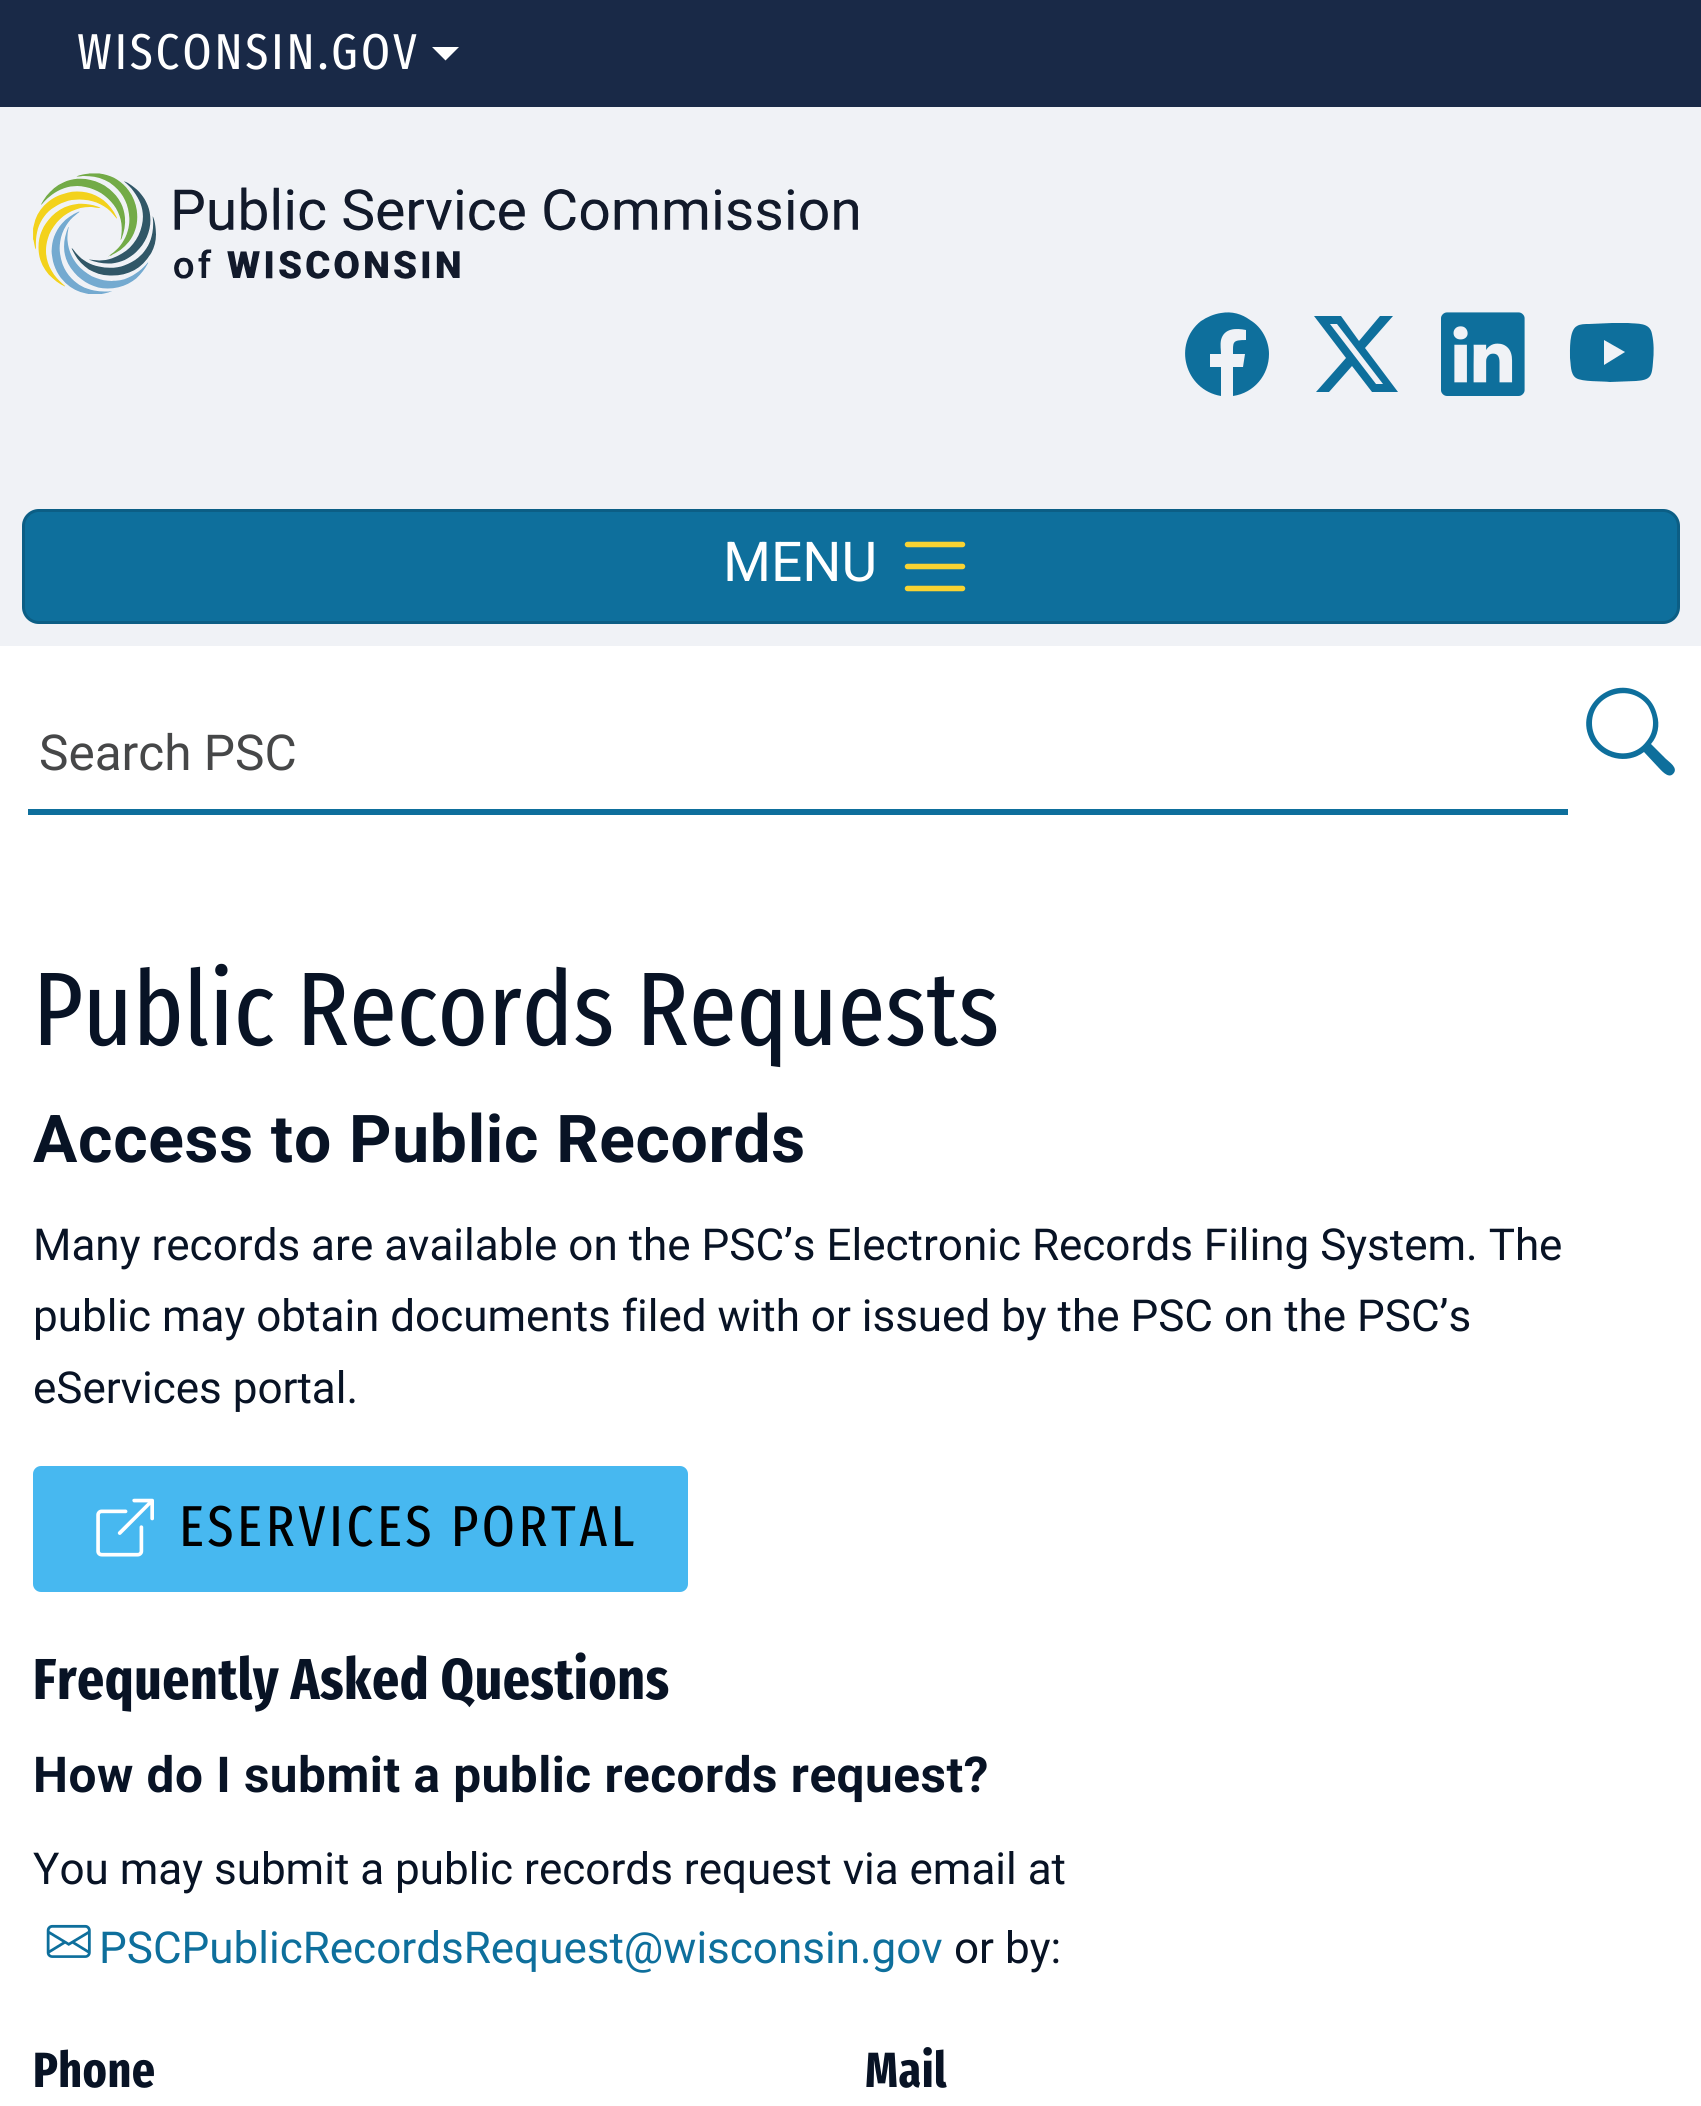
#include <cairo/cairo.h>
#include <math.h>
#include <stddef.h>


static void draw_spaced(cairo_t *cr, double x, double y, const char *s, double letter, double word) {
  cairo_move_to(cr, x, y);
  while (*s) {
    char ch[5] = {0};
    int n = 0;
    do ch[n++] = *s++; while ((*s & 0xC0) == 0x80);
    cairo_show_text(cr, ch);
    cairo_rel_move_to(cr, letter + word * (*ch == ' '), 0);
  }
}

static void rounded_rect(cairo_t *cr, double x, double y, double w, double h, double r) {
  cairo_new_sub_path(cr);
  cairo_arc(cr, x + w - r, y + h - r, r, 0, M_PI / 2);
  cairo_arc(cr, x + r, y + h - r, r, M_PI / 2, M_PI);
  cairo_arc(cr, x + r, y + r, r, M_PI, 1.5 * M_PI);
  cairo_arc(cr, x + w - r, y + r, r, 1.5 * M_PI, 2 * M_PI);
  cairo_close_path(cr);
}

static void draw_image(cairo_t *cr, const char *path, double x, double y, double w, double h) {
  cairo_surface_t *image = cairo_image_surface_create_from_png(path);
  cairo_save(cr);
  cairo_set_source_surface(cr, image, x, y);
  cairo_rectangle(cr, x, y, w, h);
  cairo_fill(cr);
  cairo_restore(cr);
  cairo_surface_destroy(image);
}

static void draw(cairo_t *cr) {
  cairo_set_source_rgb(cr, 1, 1, 1);
  cairo_paint(cr);
  cairo_set_source_rgb(cr, 25 / 255.0, 41 / 255.0, 71 / 255.0);
  cairo_rectangle(cr, 0, 0, 1701, 107);
  cairo_fill(cr);
  cairo_set_source_rgb(cr, 1, 1, 1);
  cairo_new_path(cr);
  cairo_move_to(cr, 432, 47);
  cairo_line_to(cr, 459, 47);
  cairo_line_to(cr, 445.5, 60.5);
  cairo_close_path(cr);
  cairo_fill(cr);
  cairo_set_source_rgb(cr, 240 / 255.0, 242 / 255.0, 246 / 255.0);
  cairo_rectangle(cr, 0, 107, 1701, 539);
  cairo_fill(cr);
  draw_image(cr, "images/1.png", 33, 173, 825, 121);
  cairo_set_source_rgb(cr, 14 / 255.0, 111 / 255.0, 156 / 255.0);
  cairo_new_path(cr);
  cairo_move_to(cr, 1269, 354);
  cairo_curve_to(cr, 1269, 341, 1262, 327, 1250, 320);
  cairo_curve_to(cr, 1242, 314, 1232, 311, 1221, 313);
  cairo_curve_to(cr, 1214, 314, 1207, 317, 1201, 321);
  cairo_curve_to(cr, 1172, 344, 1185, 390, 1221, 396);
  cairo_line_to(cr, 1221, 367);
  cairo_line_to(cr, 1210, 367);
  cairo_line_to(cr, 1210, 354);
  cairo_line_to(cr, 1221, 354);
  cairo_curve_to(cr, 1221, 350, 1220, 345, 1221, 340);
  cairo_curve_to(cr, 1224, 328, 1236, 328, 1246, 330);
  cairo_line_to(cr, 1246, 340);
  cairo_curve_to(cr, 1232, 340, 1233, 342, 1233, 354);
  cairo_line_to(cr, 1245, 354);
  cairo_line_to(cr, 1243, 367);
  cairo_line_to(cr, 1233, 367);
  cairo_line_to(cr, 1233, 396);
  cairo_curve_to(cr, 1254, 393, 1269, 375, 1269, 354);
  cairo_close_path(cr);
  cairo_fill(cr);
  cairo_new_path(cr);
  cairo_move_to(cr, 1380, 316);
  cairo_line_to(cr, 1393, 316);
  cairo_line_to(cr, 1365, 348);
  cairo_line_to(cr, 1398, 392);
  cairo_line_to(cr, 1372, 392);
  cairo_line_to(cr, 1352, 366);
  cairo_line_to(cr, 1329, 392);
  cairo_line_to(cr, 1316, 392);
  cairo_line_to(cr, 1346, 358);
  cairo_line_to(cr, 1314, 316);
  cairo_line_to(cr, 1341, 316);
  cairo_line_to(cr, 1359, 341);
  cairo_close_path(cr);
  cairo_move_to(cr, 1376, 384);
  cairo_line_to(cr, 1383, 384);
  cairo_line_to(cr, 1337, 324);
  cairo_line_to(cr, 1330, 324);
  cairo_close_path(cr);
  cairo_fill(cr);
  draw_image(cr, "images/2.png", 1441, 312, 84, 84);
  cairo_new_path(cr);
  cairo_move_to(cr, 1612, 323);
  cairo_line_to(cr, 1628, 323);
  cairo_curve_to(cr, 1637, 324, 1650, 322, 1652, 334);
  cairo_curve_to(cr, 1654, 343, 1654, 353, 1653, 362);
  cairo_curve_to(cr, 1652, 376, 1651, 380, 1636, 381);
  cairo_line_to(cr, 1610, 382);
  cairo_curve_to(cr, 1602, 381, 1582, 382, 1576, 378);
  cairo_curve_to(cr, 1570, 374, 1571, 364, 1570, 358);
  cairo_curve_to(cr, 1570, 350, 1569, 330, 1577, 326);
  cairo_curve_to(cr, 1580, 324, 1585, 324, 1589, 324);
  cairo_close_path(cr);
  cairo_move_to(cr, 1604, 340);
  cairo_line_to(cr, 1604, 365);
  cairo_line_to(cr, 1625, 352);
  cairo_close_path(cr);
  cairo_fill(cr);
  rounded_rect(cr, 22, 509, 1658, 115, 17);
  cairo_fill(cr);
  rounded_rect(cr, 23.5, 510.5, 1655, 112, 15.5);
  cairo_set_source_rgba(cr, 0, 0, 0, 0.15);
  cairo_set_line_width(cr, 3);
  cairo_stroke(cr);
  draw_image(cr, "images/3.png", 904, 541, 62, 51);
  cairo_set_source_rgb(cr, 14 / 255.0, 111 / 255.0, 156 / 255.0);
  cairo_rectangle(cr, 28, 809, 1540, 6);
  cairo_fill(cr);
  cairo_new_path(cr);
  cairo_move_to(cr, 1651, 744);
  cairo_curve_to(cr, 1658, 736, 1660, 725, 1657, 715);
  cairo_curve_to(cr, 1655, 707, 1651, 700, 1644, 695);
  cairo_curve_to(cr, 1613, 672, 1572, 708, 1591, 741);
  cairo_curve_to(cr, 1602, 759, 1627, 765, 1644, 752);
  cairo_line_to(cr, 1658, 767);
  cairo_curve_to(cr, 1661, 770, 1668, 779, 1673, 774);
  cairo_curve_to(cr, 1679, 768, 1669, 762, 1666, 759);
  cairo_close_path(cr);
  cairo_move_to(cr, 1653, 723);
  cairo_curve_to(cr, 1653, 730, 1651, 736, 1646, 742);
  cairo_curve_to(cr, 1629, 764, 1592, 752, 1592, 723);
  cairo_curve_to(cr, 1592, 694, 1631, 682, 1648, 706);
  cairo_curve_to(cr, 1651, 711, 1653, 717, 1653, 723);
  cairo_close_path(cr);
  cairo_fill(cr);
  cairo_set_source_rgb(cr, 71 / 255.0, 184 / 255.0, 240 / 255.0);
  rounded_rect(cr, 36, 1469, 649, 120, 5);
  cairo_fill_preserve(cr);
  cairo_set_line_width(cr, 6);
  cairo_stroke(cr);
  draw_image(cr, "images/4.png", 96, 1498, 58, 59);
  draw_image(cr, "images/5.png", 46, 1924, 45, 34);
  cairo_select_font_face(cr, "Fira Sans Extra Condensed", CAIRO_FONT_SLANT_NORMAL, CAIRO_FONT_WEIGHT_NORMAL);
  cairo_set_font_size(cr, 50.5);
  cairo_set_source_rgb(cr, 1, 1, 1);
  draw_spaced(cr, 77, 69, "WISCONSIN.GOV", 3, 0);
  cairo_select_font_face(cr, "Roboto", CAIRO_FONT_SLANT_NORMAL, CAIRO_FONT_WEIGHT_NORMAL);
  cairo_set_font_size(cr, 55);
  cairo_move_to(cr, 723, 581);
  cairo_show_text(cr, "MENU");
  cairo_set_font_size(cr, 49.5);
  cairo_set_source_rgb(cr, 70 / 255.0, 71 / 255.0, 72 / 255.0);
  cairo_move_to(cr, 39, 770);
  cairo_show_text(cr, "Search PSC");
  cairo_select_font_face(cr, "Fira Sans Extra Condensed", CAIRO_FONT_SLANT_NORMAL, CAIRO_FONT_WEIGHT_NORMAL);
  cairo_set_font_size(cr, 104.5);
  cairo_set_source_rgb(cr, 8 / 255.0, 19 / 255.0, 37 / 255.0);
  cairo_move_to(cr, 33, 1045);
  cairo_show_text(cr, "Public Records Requests");
  cairo_select_font_face(cr, "Roboto", CAIRO_FONT_SLANT_NORMAL, CAIRO_FONT_WEIGHT_BOLD);
  cairo_set_font_size(cr, 66);
  draw_spaced(cr, 33, 1162, "Access to Public Records", 0.7, 0);
  cairo_select_font_face(cr, "Roboto", CAIRO_FONT_SLANT_NORMAL, CAIRO_FONT_WEIGHT_NORMAL);
  cairo_set_font_size(cr, 44);
  cairo_move_to(cr, 33, 1260);
  cairo_show_text(cr, "Many records are available on the PSC’s Electronic Records Filing System. The");
  cairo_move_to(cr, 33, 1331);
  cairo_show_text(cr, "public may obtain documents filed with or issued by the PSC on the PSC’s");
  cairo_move_to(cr, 33, 1403);
  cairo_show_text(cr, "eServices portal.");
  cairo_select_font_face(cr, "Fira Sans Extra Condensed", CAIRO_FONT_SLANT_NORMAL, CAIRO_FONT_WEIGHT_NORMAL);
  cairo_set_font_size(cr, 57.75);
  cairo_set_source_rgb(cr, 0, 0, 0);
  draw_spaced(cr, 179, 1546, "ESERVICES PORTAL", 3.5, 0);
  cairo_select_font_face(cr, "Fira Sans Extra Condensed", CAIRO_FONT_SLANT_NORMAL, CAIRO_FONT_WEIGHT_BOLD);
  cairo_set_source_rgb(cr, 8 / 255.0, 19 / 255.0, 37 / 255.0);
  draw_spaced(cr, 33, 1699, "Frequently Asked Questions", 0.6, 0);
  cairo_select_font_face(cr, "Roboto", CAIRO_FONT_SLANT_NORMAL, CAIRO_FONT_WEIGHT_BOLD);
  cairo_set_font_size(cr, 49.5);
  draw_spaced(cr, 33, 1792, "How do I submit a public records request?", 0.5, 0);
  cairo_select_font_face(cr, "Roboto", CAIRO_FONT_SLANT_NORMAL, CAIRO_FONT_WEIGHT_NORMAL);
  cairo_set_font_size(cr, 44);
  cairo_move_to(cr, 33, 1884);
  cairo_show_text(cr, "You may submit a public records request via email at");
  cairo_set_source_rgb(cr, 14 / 255.0, 111 / 255.0, 156 / 255.0);
  cairo_move_to(cr, 99, 1963);
  cairo_show_text(cr, "PSCPublicRecordsRequest@wisconsin.gov");
  cairo_set_source_rgb(cr, 8 / 255.0, 19 / 255.0, 37 / 255.0);
  cairo_move_to(cr, 954, 1963);
  cairo_show_text(cr, "or by:");
  cairo_select_font_face(cr, "Fira Sans Extra Condensed", CAIRO_FONT_SLANT_NORMAL, CAIRO_FONT_WEIGHT_BOLD);
  cairo_set_font_size(cr, 49.5);
  draw_spaced(cr, 33, 2087, "Phone", 0.5, 0);
  draw_spaced(cr, 865, 2087, "Mail", 0.5, 0);
}

int main(void) {
  cairo_surface_t *surface = cairo_image_surface_create(CAIRO_FORMAT_RGB24, 1701, 2106);
  cairo_t *cr = cairo_create(surface);
  cairo_font_options_t *options = cairo_font_options_create();
  cairo_font_options_set_hint_metrics(options, CAIRO_HINT_METRICS_OFF);
  cairo_font_options_set_hint_style(options, CAIRO_HINT_STYLE_NONE);
  cairo_set_font_options(cr, options);
  cairo_set_miter_limit(cr, 4);
  draw(cr);
  cairo_surface_write_to_png(surface, "out.png");
  cairo_font_options_destroy(options);
  cairo_destroy(cr);
  cairo_surface_destroy(surface);
  return 0;
}
